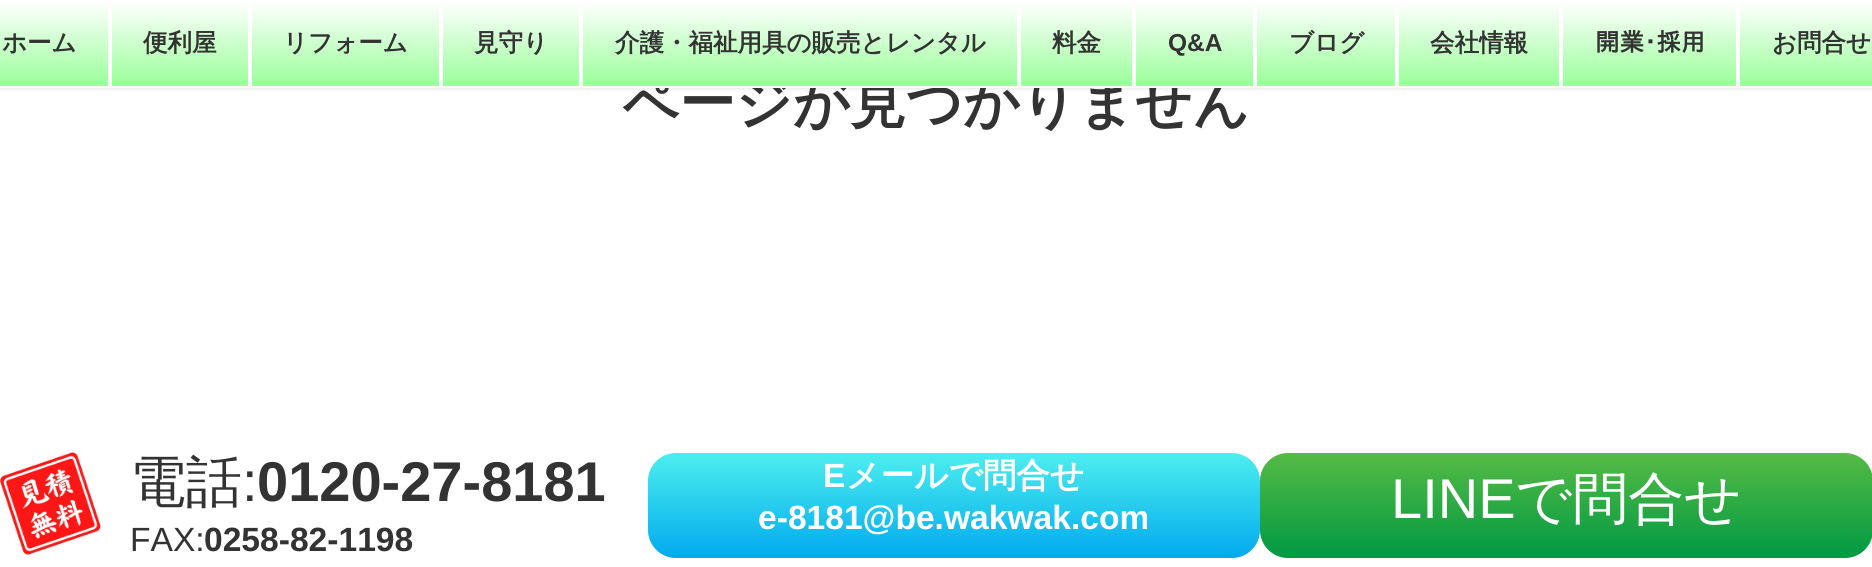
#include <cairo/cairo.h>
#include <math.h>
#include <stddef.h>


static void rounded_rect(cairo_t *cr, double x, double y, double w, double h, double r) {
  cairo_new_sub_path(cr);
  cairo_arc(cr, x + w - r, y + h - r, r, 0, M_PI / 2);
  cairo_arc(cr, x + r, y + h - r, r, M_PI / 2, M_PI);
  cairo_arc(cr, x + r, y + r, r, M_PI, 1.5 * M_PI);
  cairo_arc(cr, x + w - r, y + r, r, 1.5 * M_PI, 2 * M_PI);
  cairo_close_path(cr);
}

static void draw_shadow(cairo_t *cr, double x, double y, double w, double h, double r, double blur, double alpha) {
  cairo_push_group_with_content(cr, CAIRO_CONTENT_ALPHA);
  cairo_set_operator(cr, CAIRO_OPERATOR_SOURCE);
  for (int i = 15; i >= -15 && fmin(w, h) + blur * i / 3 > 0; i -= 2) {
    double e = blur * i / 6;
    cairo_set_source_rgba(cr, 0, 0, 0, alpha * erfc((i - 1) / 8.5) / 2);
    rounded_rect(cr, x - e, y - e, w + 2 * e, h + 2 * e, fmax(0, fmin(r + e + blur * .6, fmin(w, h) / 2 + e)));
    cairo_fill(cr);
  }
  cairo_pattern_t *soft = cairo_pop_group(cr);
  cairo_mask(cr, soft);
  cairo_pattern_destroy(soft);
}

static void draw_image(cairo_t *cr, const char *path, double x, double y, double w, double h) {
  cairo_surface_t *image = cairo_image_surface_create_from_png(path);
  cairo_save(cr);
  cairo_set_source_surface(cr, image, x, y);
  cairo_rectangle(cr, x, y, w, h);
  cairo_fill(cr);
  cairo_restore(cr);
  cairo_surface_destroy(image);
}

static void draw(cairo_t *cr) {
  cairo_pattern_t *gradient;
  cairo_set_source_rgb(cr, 1, 1, 1);
  cairo_paint(cr);
  cairo_set_source_rgb(cr, 0, 0, 0);
  draw_shadow(cr, 0, 2, 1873, 87, 0, 2.5, 0.1);
  gradient = cairo_pattern_create_linear(39, 1.7, 39, 86);
  cairo_pattern_add_color_stop_rgba(gradient, 0, 1, 1, 1, 1);
  cairo_pattern_add_color_stop_rgba(gradient, 1, 153 / 255.0, 1, 153 / 255.0, 1);
  cairo_set_source(cr, gradient);
  cairo_pattern_destroy(gradient);
  cairo_rectangle(cr, 0, 2, 108, 84);
  cairo_fill(cr);
  cairo_rectangle(cr, -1, 1, 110, 86);
  cairo_set_source_rgb(cr, 1, 1, 1);
  cairo_stroke(cr);
  gradient = cairo_pattern_create_linear(180, 1.7, 180, 86);
  cairo_pattern_add_color_stop_rgba(gradient, 0, 1, 1, 1, 1);
  cairo_pattern_add_color_stop_rgba(gradient, 1, 153 / 255.0, 1, 153 / 255.0, 1);
  cairo_set_source(cr, gradient);
  cairo_pattern_destroy(gradient);
  cairo_rectangle(cr, 112, 2, 136, 84);
  cairo_fill(cr);
  cairo_rectangle(cr, 111, 1, 138, 86);
  cairo_set_source_rgb(cr, 1, 1, 1);
  cairo_stroke(cr);
  gradient = cairo_pattern_create_linear(346, 1.7, 346, 86);
  cairo_pattern_add_color_stop_rgba(gradient, 0, 1, 1, 1, 1);
  cairo_pattern_add_color_stop_rgba(gradient, 1, 153 / 255.0, 1, 153 / 255.0, 1);
  cairo_set_source(cr, gradient);
  cairo_pattern_destroy(gradient);
  cairo_rectangle(cr, 252, 2, 187, 84);
  cairo_fill(cr);
  cairo_rectangle(cr, 251, 1, 189, 86);
  cairo_set_source_rgb(cr, 1, 1, 1);
  cairo_stroke(cr);
  gradient = cairo_pattern_create_linear(511, 1.7, 511, 86);
  cairo_pattern_add_color_stop_rgba(gradient, 0, 1, 1, 1, 1);
  cairo_pattern_add_color_stop_rgba(gradient, 1, 153 / 255.0, 1, 153 / 255.0, 1);
  cairo_set_source(cr, gradient);
  cairo_pattern_destroy(gradient);
  cairo_rectangle(cr, 443, 2, 136, 84);
  cairo_fill(cr);
  cairo_rectangle(cr, 442, 1, 138, 86);
  cairo_set_source_rgb(cr, 1, 1, 1);
  cairo_stroke(cr);
  gradient = cairo_pattern_create_linear(1326, 1.7, 1326, 86);
  cairo_pattern_add_color_stop_rgba(gradient, 0, 1, 1, 1, 1);
  cairo_pattern_add_color_stop_rgba(gradient, 1, 153 / 255.0, 1, 153 / 255.0, 1);
  cairo_set_source(cr, gradient);
  cairo_pattern_destroy(gradient);
  cairo_rectangle(cr, 1257, 2, 138, 84);
  cairo_fill(cr);
  cairo_rectangle(cr, 1256, 1, 140, 86);
  cairo_set_source_rgb(cr, 1, 1, 1);
  cairo_stroke(cr);
  gradient = cairo_pattern_create_linear(1479, 1.7, 1479, 86);
  cairo_pattern_add_color_stop_rgba(gradient, 0, 1, 1, 1, 1);
  cairo_pattern_add_color_stop_rgba(gradient, 1, 153 / 255.0, 1, 153 / 255.0, 1);
  cairo_set_source(cr, gradient);
  cairo_pattern_destroy(gradient);
  cairo_rectangle(cr, 1399, 2, 160, 84);
  cairo_fill(cr);
  cairo_rectangle(cr, 1398, 1, 162, 86);
  cairo_set_source_rgb(cr, 1, 1, 1);
  cairo_stroke(cr);
  gradient = cairo_pattern_create_linear(1649, 1.7, 1649, 86);
  cairo_pattern_add_color_stop_rgba(gradient, 0, 1, 1, 1, 1);
  cairo_pattern_add_color_stop_rgba(gradient, 1, 153 / 255.0, 1, 153 / 255.0, 1);
  cairo_set_source(cr, gradient);
  cairo_pattern_destroy(gradient);
  cairo_rectangle(cr, 1563, 2, 173, 84);
  cairo_fill(cr);
  cairo_rectangle(cr, 1562, 1, 175, 86);
  cairo_set_source_rgb(cr, 1, 1, 1);
  cairo_stroke(cr);
  gradient = cairo_pattern_create_linear(1821, 1.7, 1821, 86);
  cairo_pattern_add_color_stop_rgba(gradient, 0, 1, 1, 1, 1);
  cairo_pattern_add_color_stop_rgba(gradient, 1, 153 / 255.0, 1, 153 / 255.0, 1);
  cairo_set_source(cr, gradient);
  cairo_pattern_destroy(gradient);
  cairo_rectangle(cr, 1740, 2, 132, 84);
  cairo_fill(cr);
  cairo_rectangle(cr, 1739, 1, 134, 86);
  cairo_set_source_rgb(cr, 1, 1, 1);
  cairo_stroke(cr);
  draw_image(cr, "images/1.png", 0, 452, 101, 103);
  gradient = cairo_pattern_create_linear(954, 453, 954, 558);
  cairo_pattern_add_color_stop_rgba(gradient, 0, 77 / 255.0, 238 / 255.0, 238 / 255.0, 1);
  cairo_pattern_add_color_stop_rgba(gradient, 1, 0, 170 / 255.0, 238 / 255.0, 1);
  cairo_set_source(cr, gradient);
  cairo_pattern_destroy(gradient);
  rounded_rect(cr, 648, 453, 612, 105, 28);
  cairo_fill(cr);
  gradient = cairo_pattern_create_linear(1566, 453, 1566, 558);
  cairo_pattern_add_color_stop_rgba(gradient, 0, 85 / 255.0, 187 / 255.0, 68 / 255.0, 1);
  cairo_pattern_add_color_stop_rgba(gradient, 1, 0, 153 / 255.0, 68 / 255.0, 1);
  cairo_set_source(cr, gradient);
  cairo_pattern_destroy(gradient);
  rounded_rect(cr, 1260, 453, 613, 105, 28);
  cairo_fill(cr);
  cairo_select_font_face(cr, "WenQuanYi Zen Hei", CAIRO_FONT_SLANT_NORMAL, CAIRO_FONT_WEIGHT_BOLD);
  cairo_set_font_size(cr, 24.5);
  cairo_set_source_rgb(cr, 51 / 255.0, 51 / 255.0, 51 / 255.0);
  cairo_move_to(cr, 2, 51);
  cairo_show_text(cr, "ホーム");
  cairo_move_to(cr, 143, 51);
  cairo_show_text(cr, "便利屋");
  cairo_move_to(cr, 283, 51);
  cairo_show_text(cr, "リフォーム");
  cairo_move_to(cr, 474, 51);
  cairo_show_text(cr, "見守り");
  cairo_move_to(cr, 1289, 51);
  cairo_show_text(cr, "ブログ");
  cairo_move_to(cr, 1430, 51);
  cairo_show_text(cr, "会社情報");
  cairo_select_font_face(cr, "IPAPGothic", CAIRO_FONT_SLANT_NORMAL, CAIRO_FONT_WEIGHT_BOLD);
  cairo_move_to(cr, 1595, 51);
  cairo_show_text(cr, "開業･採用");
  cairo_select_font_face(cr, "WenQuanYi Zen Hei", CAIRO_FONT_SLANT_NORMAL, CAIRO_FONT_WEIGHT_BOLD);
  cairo_move_to(cr, 1772, 51);
  cairo_show_text(cr, "お問合せ");
  cairo_set_font_size(cr, 56);
  cairo_move_to(cr, 622, 122);
  cairo_show_text(cr, "ページが見つかりません");
  gradient = cairo_pattern_create_linear(1194, 1.7, 1194, 86);
  cairo_pattern_add_color_stop_rgba(gradient, 0, 1, 1, 1, 1);
  cairo_pattern_add_color_stop_rgba(gradient, 1, 153 / 255.0, 1, 153 / 255.0, 1);
  cairo_set_source(cr, gradient);
  cairo_pattern_destroy(gradient);
  cairo_rectangle(cr, 1136, 2, 117, 84);
  cairo_fill(cr);
  cairo_rectangle(cr, 1135, 1, 119, 86);
  cairo_set_source_rgb(cr, 1, 1, 1);
  cairo_stroke(cr);
  cairo_select_font_face(cr, "Liberation Sans", CAIRO_FONT_SLANT_NORMAL, CAIRO_FONT_WEIGHT_BOLD);
  cairo_set_font_size(cr, 24.5);
  cairo_set_source_rgb(cr, 51 / 255.0, 51 / 255.0, 51 / 255.0);
  cairo_move_to(cr, 1168, 51);
  cairo_show_text(cr, "Q&A");
  gradient = cairo_pattern_create_linear(1076, 1.7, 1076, 86);
  cairo_pattern_add_color_stop_rgba(gradient, 0, 1, 1, 1, 1);
  cairo_pattern_add_color_stop_rgba(gradient, 1, 153 / 255.0, 1, 153 / 255.0, 1);
  cairo_set_source(cr, gradient);
  cairo_pattern_destroy(gradient);
  cairo_rectangle(cr, 1021, 2, 111, 84);
  cairo_fill(cr);
  cairo_rectangle(cr, 1020, 1, 113, 86);
  cairo_set_source_rgb(cr, 1, 1, 1);
  cairo_stroke(cr);
  cairo_select_font_face(cr, "WenQuanYi Zen Hei", CAIRO_FONT_SLANT_NORMAL, CAIRO_FONT_WEIGHT_BOLD);
  cairo_set_source_rgb(cr, 51 / 255.0, 51 / 255.0, 51 / 255.0);
  cairo_move_to(cr, 1052, 51);
  cairo_show_text(cr, "料金");
  gradient = cairo_pattern_create_linear(800, 1.7, 800, 86);
  cairo_pattern_add_color_stop_rgba(gradient, 0, 1, 1, 1, 1);
  cairo_pattern_add_color_stop_rgba(gradient, 1, 153 / 255.0, 1, 153 / 255.0, 1);
  cairo_set_source(cr, gradient);
  cairo_pattern_destroy(gradient);
  cairo_rectangle(cr, 583, 2, 434, 84);
  cairo_fill(cr);
  cairo_rectangle(cr, 582, 1, 436, 86);
  cairo_set_source_rgb(cr, 1, 1, 1);
  cairo_stroke(cr);
  cairo_set_source_rgb(cr, 51 / 255.0, 51 / 255.0, 51 / 255.0);
  cairo_move_to(cr, 615, 51);
  cairo_show_text(cr, "介護・福祉用具の販売とレンタル");
  cairo_select_font_face(cr, "WenQuanYi Zen Hei Medium", CAIRO_FONT_SLANT_NORMAL, CAIRO_FONT_WEIGHT_NORMAL);
  cairo_set_font_size(cr, 56);
  cairo_move_to(cr, 130, 501);
  cairo_show_text(cr, "電話");
  cairo_select_font_face(cr, "Liberation Sans", CAIRO_FONT_SLANT_NORMAL, CAIRO_FONT_WEIGHT_NORMAL);
  cairo_move_to(cr, 242, 501);
  cairo_show_text(cr, ":");
  cairo_select_font_face(cr, "Liberation Sans", CAIRO_FONT_SLANT_NORMAL, CAIRO_FONT_WEIGHT_BOLD);
  cairo_move_to(cr, 257, 501);
  cairo_show_text(cr, "0120-27-8181");
  cairo_select_font_face(cr, "Liberation Sans", CAIRO_FONT_SLANT_NORMAL, CAIRO_FONT_WEIGHT_NORMAL);
  cairo_set_font_size(cr, 33.6);
  cairo_move_to(cr, 130, 551);
  cairo_show_text(cr, "FAX:");
  cairo_select_font_face(cr, "Liberation Sans", CAIRO_FONT_SLANT_NORMAL, CAIRO_FONT_WEIGHT_BOLD);
  cairo_move_to(cr, 204, 551);
  cairo_show_text(cr, "0258-82-1198");
  cairo_set_source_rgb(cr, 1, 1, 1);
  cairo_move_to(cr, 823, 487);
  cairo_show_text(cr, "E");
  cairo_select_font_face(cr, "WenQuanYi Zen Hei", CAIRO_FONT_SLANT_NORMAL, CAIRO_FONT_WEIGHT_BOLD);
  cairo_move_to(cr, 846, 487);
  cairo_show_text(cr, "メールで問合せ");
  cairo_select_font_face(cr, "Liberation Sans", CAIRO_FONT_SLANT_NORMAL, CAIRO_FONT_WEIGHT_BOLD);
  cairo_move_to(cr, 758, 529);
  cairo_show_text(cr, "e-8181@be.wakwak.com");
  cairo_select_font_face(cr, "Liberation Sans", CAIRO_FONT_SLANT_NORMAL, CAIRO_FONT_WEIGHT_NORMAL);
  cairo_set_font_size(cr, 56);
  cairo_move_to(cr, 1391, 518);
  cairo_show_text(cr, "LINE");
  cairo_select_font_face(cr, "WenQuanYi Zen Hei Medium", CAIRO_FONT_SLANT_NORMAL, CAIRO_FONT_WEIGHT_NORMAL);
  cairo_move_to(cr, 1515, 518);
  cairo_show_text(cr, "で問合せ");
}

int main(void) {
  cairo_surface_t *surface = cairo_image_surface_create(CAIRO_FORMAT_RGB24, 1872, 567);
  cairo_t *cr = cairo_create(surface);
  cairo_font_options_t *options = cairo_font_options_create();
  cairo_font_options_set_hint_metrics(options, CAIRO_HINT_METRICS_OFF);
  cairo_font_options_set_hint_style(options, CAIRO_HINT_STYLE_NONE);
  cairo_set_font_options(cr, options);
  cairo_set_miter_limit(cr, 4);
  draw(cr);
  cairo_surface_write_to_png(surface, "out.png");
  cairo_font_options_destroy(options);
  cairo_destroy(cr);
  cairo_surface_destroy(surface);
  return 0;
}
